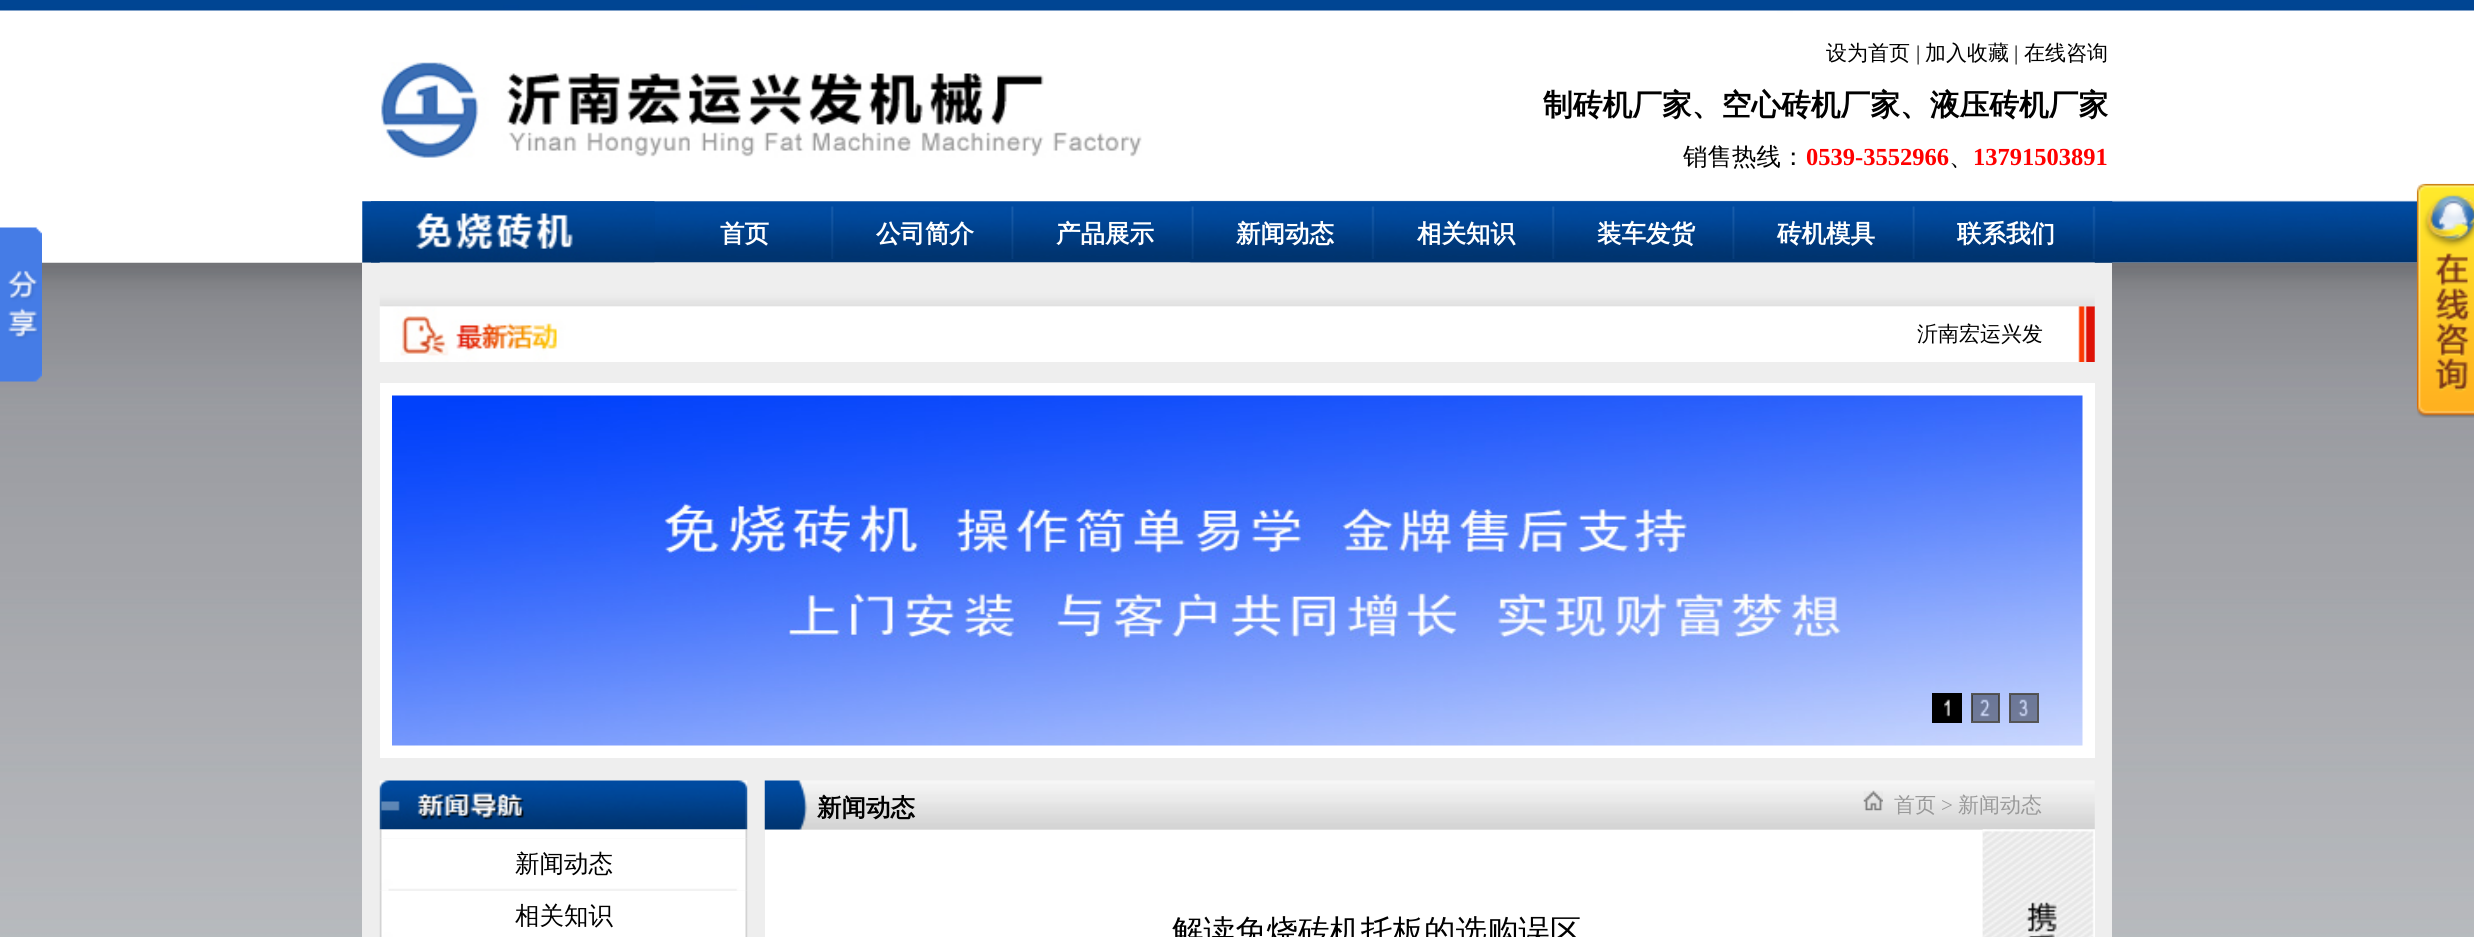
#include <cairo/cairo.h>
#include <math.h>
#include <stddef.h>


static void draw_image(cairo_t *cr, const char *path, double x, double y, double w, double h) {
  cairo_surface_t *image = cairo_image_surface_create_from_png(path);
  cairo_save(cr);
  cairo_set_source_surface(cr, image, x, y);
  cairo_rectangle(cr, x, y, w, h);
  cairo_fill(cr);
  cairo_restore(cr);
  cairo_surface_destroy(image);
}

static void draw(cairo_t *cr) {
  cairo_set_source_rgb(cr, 1, 1, 1);
  cairo_paint(cr);
  draw_image(cr, "images/1.png", 0, 262, 2474, 675);
  draw_image(cr, "images/2.png", 0, 0, 2474, 263);
  draw_image(cr, "images/3.png", 381, 62, 761, 96);
  draw_image(cr, "images/4.png", 362, 201, 1751, 62);
  draw_image(cr, "images/5.png", 371, 201, 284, 62);
  draw_image(cr, "images/6.png", 655, 206, 179, 53);
  draw_image(cr, "images/7.png", 835, 206, 180, 53);
  draw_image(cr, "images/8.png", 1015, 206, 180, 53);
  draw_image(cr, "images/9.png", 1195, 206, 180, 53);
  draw_image(cr, "images/10.png", 1376, 206, 179, 53);
  draw_image(cr, "images/11.png", 1556, 206, 180, 53);
  draw_image(cr, "images/12.png", 1736, 206, 180, 53);
  draw_image(cr, "images/9.png", 1916, 206, 180, 53);
  draw_image(cr, "images/13.png", 0, 227, 42, 155);
  cairo_set_source_rgb(cr, 238 / 255.0, 238 / 255.0, 238 / 255.0);
  cairo_rectangle(cr, 362, 263, 1750, 674);
  cairo_fill(cr);
  draw_image(cr, "images/16.png", 379, 306, 1716, 56);
  draw_image(cr, "images/14.png", 379, 262, 1716, 45);
  draw_image(cr, "images/15.png", 2416, 183, 58, 235);
  cairo_set_source_rgb(cr, 1, 1, 1);
  cairo_rectangle(cr, 380, 383, 1715, 375);
  cairo_fill(cr);
  draw_image(cr, "images/17.png", 392, 395, 1691, 351);
  cairo_rectangle(cr, 1933, 694, 28, 28);
  cairo_set_source_rgb(cr, 0, 0, 0);
  cairo_stroke(cr);
  draw_image(cr, "images/18.png", 1934, 695, 26, 26);
  cairo_rectangle(cr, 1972, 694, 27, 28);
  cairo_set_source_rgb(cr, 85 / 255.0, 85 / 255.0, 85 / 255.0);
  cairo_stroke(cr);
  draw_image(cr, "images/19.png", 1972, 694, 27, 27);
  cairo_rectangle(cr, 2010, 694, 28, 28);
  cairo_stroke(cr);
  draw_image(cr, "images/20.png", 2010, 694, 27, 27);
  draw_image(cr, "images/21.png", 379, 780, 369, 50);
  draw_image(cr, "images/22.png", 379, 829, 369, 9);
  draw_image(cr, "images/23.png", 379, 838, 369, 53);
  draw_image(cr, "images/24.png", 379, 890, 369, 47);
  draw_image(cr, "images/25.png", 764, 780, 1331, 50);
  draw_image(cr, "images/26.png", 1863, 790, 20, 21);
  cairo_set_source_rgb(cr, 1, 1, 1);
  cairo_rectangle(cr, 765, 830, 1218, 107);
  cairo_fill(cr);
  draw_image(cr, "images/27.png", 1982, 829, 113, 108);
  draw_image(cr, "images/28.png", 1982, 829, 113, 108);
  cairo_select_font_face(cr, "WenQuanYi Zen Hei Medium", CAIRO_FONT_SLANT_NORMAL, CAIRO_FONT_WEIGHT_NORMAL);
  cairo_set_font_size(cr, 21);
  cairo_set_source_rgb(cr, 0, 0, 0);
  cairo_move_to(cr, 1826, 60);
  cairo_show_text(cr, "设为首页");
  cairo_select_font_face(cr, "Liberation Serif", CAIRO_FONT_SLANT_NORMAL, CAIRO_FONT_WEIGHT_NORMAL);
  cairo_move_to(cr, 1916, 60);
  cairo_show_text(cr, "|");
  cairo_select_font_face(cr, "WenQuanYi Zen Hei Medium", CAIRO_FONT_SLANT_NORMAL, CAIRO_FONT_WEIGHT_NORMAL);
  cairo_move_to(cr, 1925, 60);
  cairo_show_text(cr, "加入收藏");
  cairo_select_font_face(cr, "Liberation Serif", CAIRO_FONT_SLANT_NORMAL, CAIRO_FONT_WEIGHT_NORMAL);
  cairo_move_to(cr, 2014, 60);
  cairo_show_text(cr, "|");
  cairo_select_font_face(cr, "WenQuanYi Zen Hei Medium", CAIRO_FONT_SLANT_NORMAL, CAIRO_FONT_WEIGHT_NORMAL);
  cairo_move_to(cr, 2024, 60);
  cairo_show_text(cr, "在线咨询");
  cairo_select_font_face(cr, "WenQuanYi Zen Hei", CAIRO_FONT_SLANT_NORMAL, CAIRO_FONT_WEIGHT_BOLD);
  cairo_set_font_size(cr, 29.75);
  cairo_move_to(cr, 1543, 115);
  cairo_show_text(cr, "制砖机厂家、空心砖机厂家、液压砖机厂家");
  cairo_select_font_face(cr, "WenQuanYi Zen Hei Medium", CAIRO_FONT_SLANT_NORMAL, CAIRO_FONT_WEIGHT_NORMAL);
  cairo_set_font_size(cr, 24.5);
  cairo_move_to(cr, 1683, 165);
  cairo_show_text(cr, "销售热线：");
  cairo_select_font_face(cr, "Liberation Serif", CAIRO_FONT_SLANT_NORMAL, CAIRO_FONT_WEIGHT_BOLD);
  cairo_set_source_rgb(cr, 1, 0, 0);
  cairo_move_to(cr, 1806, 165);
  cairo_show_text(cr, "0539-3552966");
  cairo_select_font_face(cr, "WenQuanYi Zen Hei Medium", CAIRO_FONT_SLANT_NORMAL, CAIRO_FONT_WEIGHT_NORMAL);
  cairo_set_source_rgb(cr, 0, 0, 0);
  cairo_move_to(cr, 1949, 165);
  cairo_show_text(cr, "、");
  cairo_select_font_face(cr, "Liberation Serif", CAIRO_FONT_SLANT_NORMAL, CAIRO_FONT_WEIGHT_BOLD);
  cairo_set_source_rgb(cr, 1, 0, 0);
  cairo_move_to(cr, 1973, 165);
  cairo_show_text(cr, "13791503891");
  cairo_select_font_face(cr, "WenQuanYi Zen Hei", CAIRO_FONT_SLANT_NORMAL, CAIRO_FONT_WEIGHT_BOLD);
  cairo_set_source_rgb(cr, 1, 1, 1);
  cairo_move_to(cr, 720, 242);
  cairo_show_text(cr, "首页");
  cairo_move_to(cr, 876, 242);
  cairo_show_text(cr, "公司简介");
  cairo_move_to(cr, 1056, 242);
  cairo_show_text(cr, "产品展示");
  cairo_move_to(cr, 1236, 242);
  cairo_show_text(cr, "新闻动态");
  cairo_move_to(cr, 1417, 242);
  cairo_show_text(cr, "相关知识");
  cairo_move_to(cr, 1597, 242);
  cairo_show_text(cr, "装车发货");
  cairo_move_to(cr, 1777, 242);
  cairo_show_text(cr, "砖机模具");
  cairo_move_to(cr, 1957, 242);
  cairo_show_text(cr, "联系我们");
  cairo_select_font_face(cr, "WenQuanYi Zen Hei Medium", CAIRO_FONT_SLANT_NORMAL, CAIRO_FONT_WEIGHT_NORMAL);
  cairo_set_font_size(cr, 21);
  cairo_set_source_rgb(cr, 0, 0, 0);
  cairo_move_to(cr, 1917, 341);
  cairo_show_text(cr, "沂南宏运兴发");
  cairo_set_font_size(cr, 24.5);
  cairo_move_to(cr, 515, 872);
  cairo_show_text(cr, "新闻动态");
  cairo_move_to(cr, 515, 924);
  cairo_show_text(cr, "相关知识");
  cairo_select_font_face(cr, "WenQuanYi Zen Hei", CAIRO_FONT_SLANT_NORMAL, CAIRO_FONT_WEIGHT_BOLD);
  cairo_move_to(cr, 817, 816);
  cairo_show_text(cr, "新闻动态");
  cairo_select_font_face(cr, "WenQuanYi Zen Hei Medium", CAIRO_FONT_SLANT_NORMAL, CAIRO_FONT_WEIGHT_NORMAL);
  cairo_set_font_size(cr, 21);
  cairo_set_source_rgb(cr, 153 / 255.0, 153 / 255.0, 153 / 255.0);
  cairo_move_to(cr, 1894, 812);
  cairo_show_text(cr, "首页");
  cairo_select_font_face(cr, "Liberation Serif", CAIRO_FONT_SLANT_NORMAL, CAIRO_FONT_WEIGHT_NORMAL);
  cairo_move_to(cr, 1941, 812);
  cairo_show_text(cr, ">");
  cairo_select_font_face(cr, "WenQuanYi Zen Hei Medium", CAIRO_FONT_SLANT_NORMAL, CAIRO_FONT_WEIGHT_NORMAL);
  cairo_move_to(cr, 1958, 812);
  cairo_show_text(cr, "新闻动态");
  cairo_set_font_size(cr, 31.5);
  cairo_set_source_rgb(cr, 0, 0, 0);
  cairo_move_to(cr, 1172, 942);
  cairo_show_text(cr, "解读免烧砖机托板的选购误区");
}

int main(void) {
  cairo_surface_t *surface = cairo_image_surface_create(CAIRO_FORMAT_RGB24, 2474, 937);
  cairo_t *cr = cairo_create(surface);
  cairo_font_options_t *options = cairo_font_options_create();
  cairo_font_options_set_hint_metrics(options, CAIRO_HINT_METRICS_OFF);
  cairo_font_options_set_hint_style(options, CAIRO_HINT_STYLE_NONE);
  cairo_set_font_options(cr, options);
  cairo_set_miter_limit(cr, 4);
  draw(cr);
  cairo_surface_write_to_png(surface, "out.png");
  cairo_font_options_destroy(options);
  cairo_destroy(cr);
  cairo_surface_destroy(surface);
  return 0;
}
